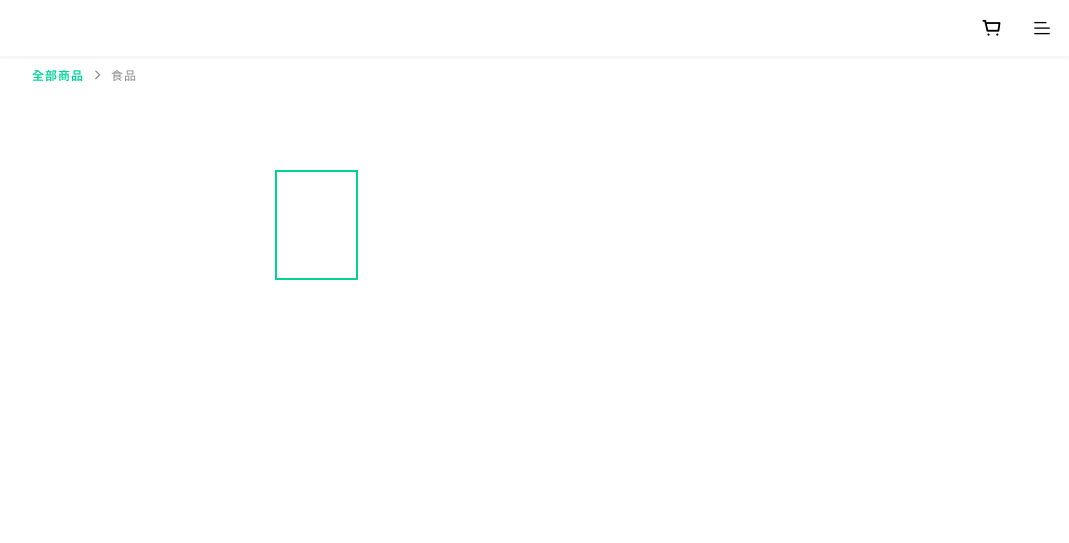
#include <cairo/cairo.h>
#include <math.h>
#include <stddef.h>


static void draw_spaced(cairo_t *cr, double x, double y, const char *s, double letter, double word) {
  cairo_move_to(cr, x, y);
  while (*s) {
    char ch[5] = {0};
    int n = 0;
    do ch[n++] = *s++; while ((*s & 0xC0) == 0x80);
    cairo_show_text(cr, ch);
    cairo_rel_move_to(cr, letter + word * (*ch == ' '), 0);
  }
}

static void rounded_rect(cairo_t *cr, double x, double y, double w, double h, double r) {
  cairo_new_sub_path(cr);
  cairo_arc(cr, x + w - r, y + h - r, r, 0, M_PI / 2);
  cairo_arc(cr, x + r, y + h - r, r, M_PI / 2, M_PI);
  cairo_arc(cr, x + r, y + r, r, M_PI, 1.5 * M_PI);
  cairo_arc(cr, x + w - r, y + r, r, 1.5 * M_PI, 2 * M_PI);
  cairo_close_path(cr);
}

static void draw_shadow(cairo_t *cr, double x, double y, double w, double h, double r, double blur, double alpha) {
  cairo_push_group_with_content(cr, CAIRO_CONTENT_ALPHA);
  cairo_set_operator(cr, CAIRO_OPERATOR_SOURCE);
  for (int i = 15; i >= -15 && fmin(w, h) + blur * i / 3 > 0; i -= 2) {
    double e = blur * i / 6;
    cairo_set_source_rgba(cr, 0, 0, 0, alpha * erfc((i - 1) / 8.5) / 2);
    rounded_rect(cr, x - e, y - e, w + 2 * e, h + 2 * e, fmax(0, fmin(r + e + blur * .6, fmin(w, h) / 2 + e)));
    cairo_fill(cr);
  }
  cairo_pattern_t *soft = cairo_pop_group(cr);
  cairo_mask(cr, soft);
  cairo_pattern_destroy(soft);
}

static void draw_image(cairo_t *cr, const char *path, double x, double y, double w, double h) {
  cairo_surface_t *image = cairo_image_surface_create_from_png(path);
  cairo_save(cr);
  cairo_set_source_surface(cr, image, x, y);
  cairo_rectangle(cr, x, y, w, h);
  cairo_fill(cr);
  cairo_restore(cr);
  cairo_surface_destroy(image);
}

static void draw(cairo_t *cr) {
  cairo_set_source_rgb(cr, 1, 1, 1);
  cairo_paint(cr);
  cairo_save(cr);
  cairo_rectangle(cr, 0, 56, 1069, 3);
  cairo_clip(cr);
  cairo_set_source_rgb(cr, 0, 0, 0);
  draw_shadow(cr, 0, 2, 1069, 56, 0, 3, 0.06);
  cairo_restore(cr);
  draw_image(cr, "images/1.png", 982, 19, 19, 17);
  draw_image(cr, "images/2.png", 1034, 21, 16, 14);
  draw_image(cr, "images/3.png", 95, 70, 6, 10);
  cairo_rectangle(cr, 276, 171, 81, 108);
  cairo_set_source_rgb(cr, 0, 211 / 255.0, 149 / 255.0);
  cairo_stroke(cr);
  cairo_select_font_face(cr, "Noto Sans TC SemiBold", CAIRO_FONT_SLANT_NORMAL, CAIRO_FONT_WEIGHT_NORMAL);
  cairo_set_font_size(cr, 12);
  draw_spaced(cr, 32, 80, "全部商品", 1, 0);
  cairo_select_font_face(cr, "Noto Sans TC", CAIRO_FONT_SLANT_NORMAL, CAIRO_FONT_WEIGHT_NORMAL);
  cairo_set_source_rgb(cr, 136 / 255.0, 136 / 255.0, 136 / 255.0);
  draw_spaced(cr, 111, 80, "食品", 1, 0);
}

int main(void) {
  cairo_surface_t *surface = cairo_image_surface_create(CAIRO_FORMAT_RGB24, 1069, 543);
  cairo_t *cr = cairo_create(surface);
  cairo_font_options_t *options = cairo_font_options_create();
  cairo_font_options_set_hint_metrics(options, CAIRO_HINT_METRICS_OFF);
  cairo_font_options_set_hint_style(options, CAIRO_HINT_STYLE_NONE);
  cairo_set_font_options(cr, options);
  cairo_set_miter_limit(cr, 4);
  draw(cr);
  cairo_surface_write_to_png(surface, "out.png");
  cairo_font_options_destroy(options);
  cairo_destroy(cr);
  cairo_surface_destroy(surface);
  return 0;
}
